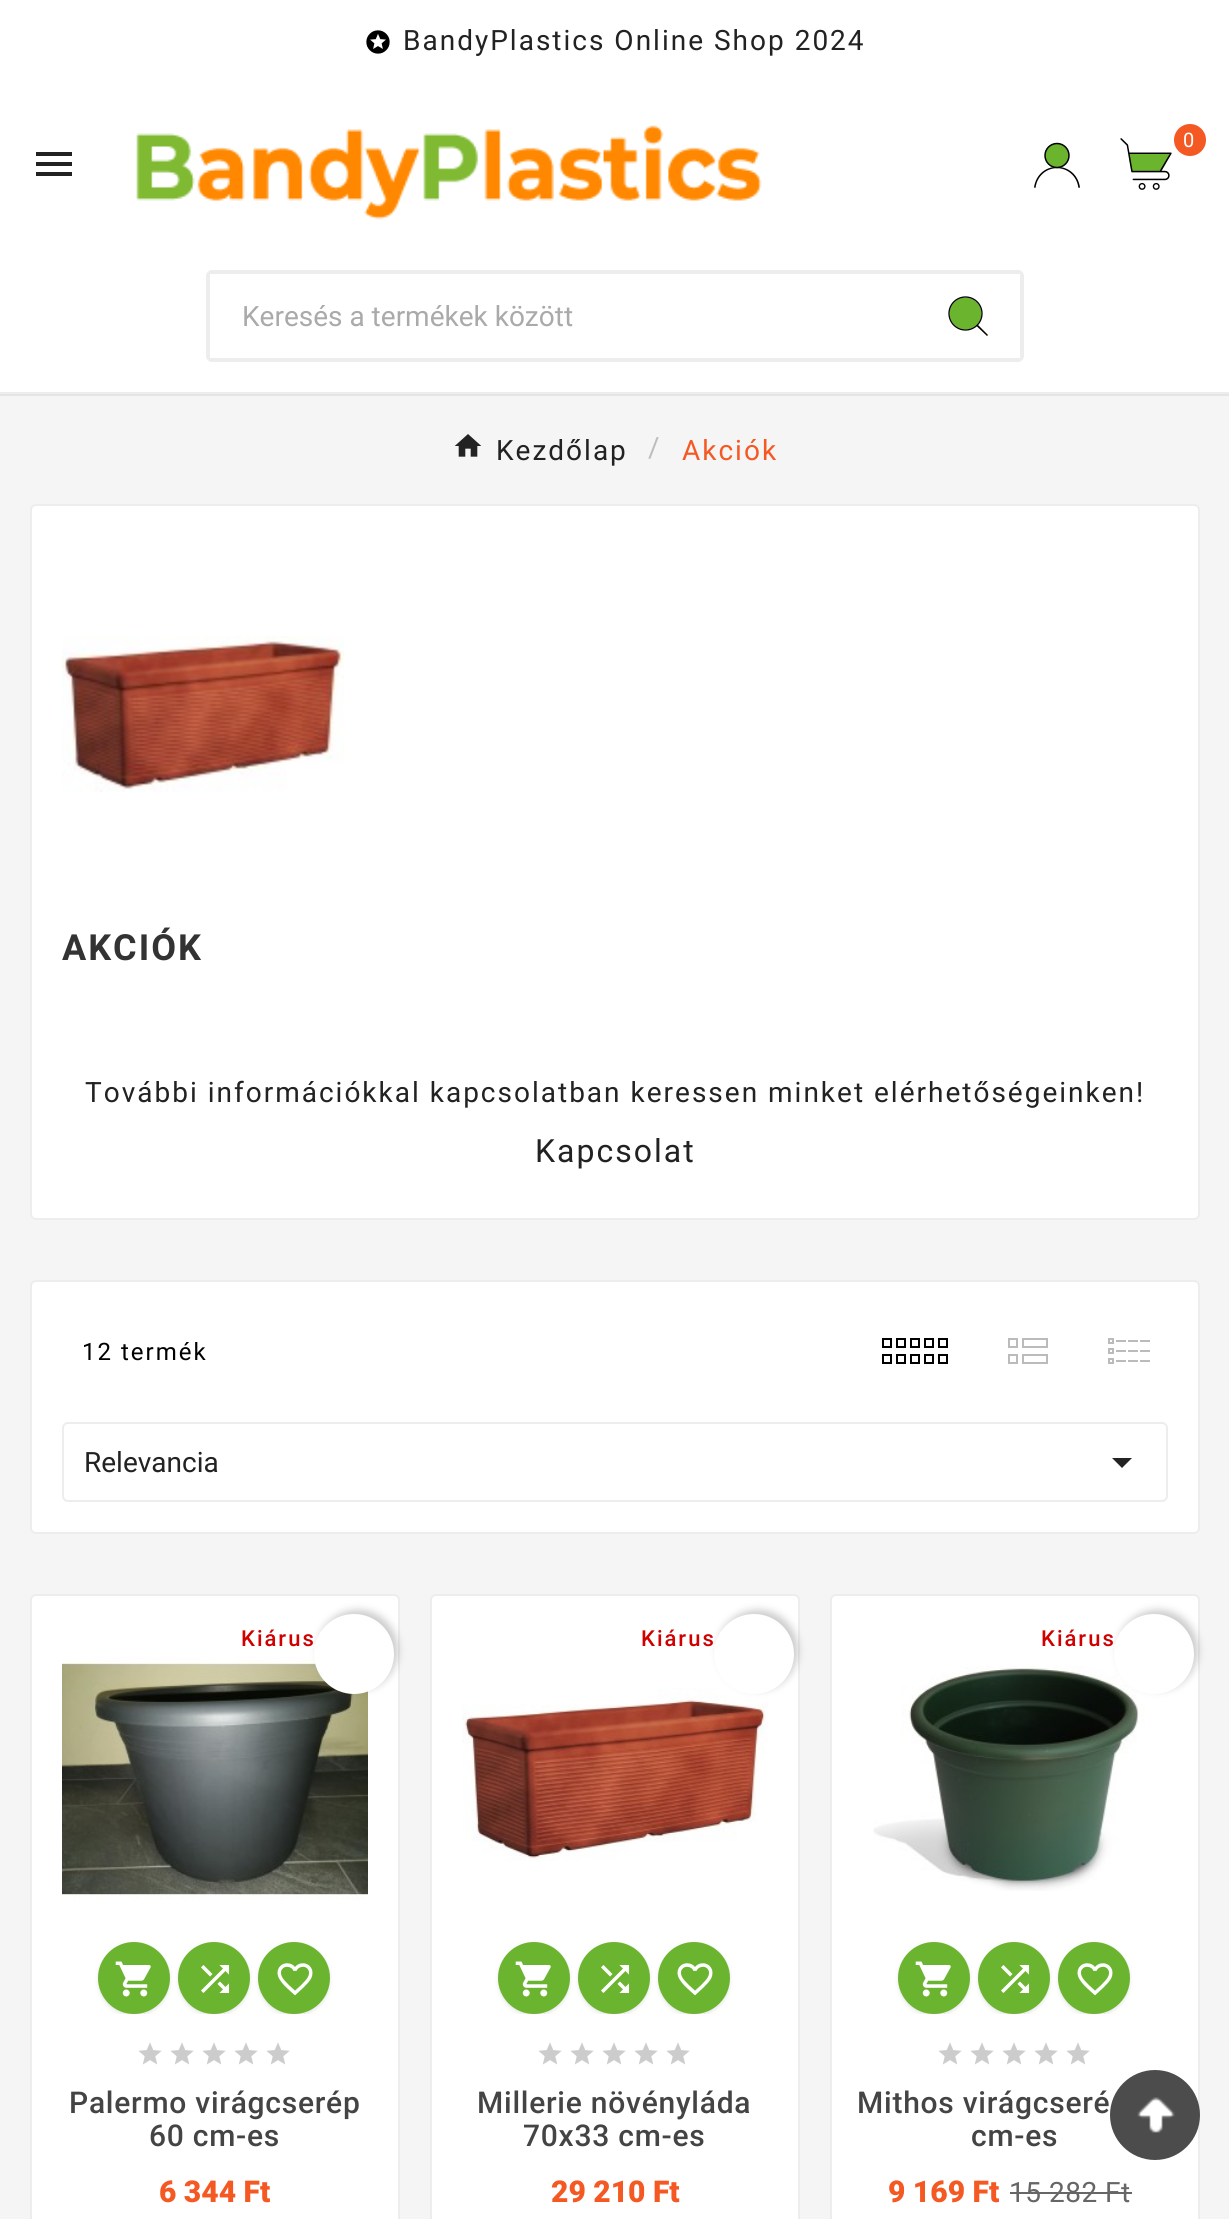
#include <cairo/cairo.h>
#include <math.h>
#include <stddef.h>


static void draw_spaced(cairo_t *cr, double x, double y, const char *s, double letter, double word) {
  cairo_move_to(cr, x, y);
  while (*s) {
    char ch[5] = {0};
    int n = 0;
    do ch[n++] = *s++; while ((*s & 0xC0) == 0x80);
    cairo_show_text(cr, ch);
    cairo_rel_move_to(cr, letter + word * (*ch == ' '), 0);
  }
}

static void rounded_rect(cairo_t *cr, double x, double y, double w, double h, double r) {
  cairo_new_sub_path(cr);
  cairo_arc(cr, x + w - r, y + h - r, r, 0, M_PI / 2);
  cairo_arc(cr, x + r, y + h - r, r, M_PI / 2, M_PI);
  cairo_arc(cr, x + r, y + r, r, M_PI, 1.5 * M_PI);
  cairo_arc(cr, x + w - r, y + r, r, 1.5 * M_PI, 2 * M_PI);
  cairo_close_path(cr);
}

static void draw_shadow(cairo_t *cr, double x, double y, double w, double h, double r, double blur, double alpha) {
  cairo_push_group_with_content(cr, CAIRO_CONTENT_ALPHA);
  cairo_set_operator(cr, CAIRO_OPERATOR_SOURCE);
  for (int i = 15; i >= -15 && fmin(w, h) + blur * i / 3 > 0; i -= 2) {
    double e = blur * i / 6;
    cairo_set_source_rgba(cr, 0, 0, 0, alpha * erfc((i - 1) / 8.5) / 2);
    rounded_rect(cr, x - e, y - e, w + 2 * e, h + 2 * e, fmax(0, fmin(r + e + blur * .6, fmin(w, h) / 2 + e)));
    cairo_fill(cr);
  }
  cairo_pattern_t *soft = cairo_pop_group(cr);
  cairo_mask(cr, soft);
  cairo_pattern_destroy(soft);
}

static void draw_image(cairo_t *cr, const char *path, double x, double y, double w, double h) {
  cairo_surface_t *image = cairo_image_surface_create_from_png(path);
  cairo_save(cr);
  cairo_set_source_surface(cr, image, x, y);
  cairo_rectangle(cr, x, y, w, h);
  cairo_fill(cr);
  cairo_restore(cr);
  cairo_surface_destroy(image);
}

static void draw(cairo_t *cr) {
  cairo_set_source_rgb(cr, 245 / 255.0, 245 / 255.0, 245 / 255.0);
  cairo_paint(cr);
  cairo_set_source_rgb(cr, 1, 1, 1);
  cairo_rectangle(cr, 0, 0, 1229, 392);
  cairo_fill(cr);
  cairo_set_source_rgb(cr, 229 / 255.0, 229 / 255.0, 229 / 255.0);
  cairo_rectangle(cr, 0, 394, 1229, 2);
  cairo_fill(cr);
  cairo_set_source_rgb(cr, 237 / 255.0, 237 / 255.0, 237 / 255.0);
  cairo_rectangle(cr, 0, 392, 1229, 2);
  cairo_fill(cr);
  draw_image(cr, "images/1.png", 366, 30, 24, 24);
  draw_image(cr, "images/2.png", 136, 125, 626, 95);
  draw_image(cr, "images/3.png", 1120, 138, 52, 52);
  cairo_set_source_rgb(cr, 245 / 255.0, 89 / 255.0, 35 / 255.0);
  cairo_arc(cr, 1190, 140, 16, 0, 2 * M_PI);
  cairo_fill(cr);
  draw_image(cr, "images/4.png", 1034, 142, 46, 46);
  cairo_set_source_rgb(cr, 34 / 255.0, 34 / 255.0, 34 / 255.0);
  cairo_new_path(cr);
  cairo_move_to(cr, 36, 152);
  cairo_line_to(cr, 72, 152);
  cairo_line_to(cr, 72, 156);
  cairo_line_to(cr, 36, 156);
  cairo_close_path(cr);
  cairo_move_to(cr, 36, 166);
  cairo_line_to(cr, 36, 162);
  cairo_line_to(cr, 72, 162);
  cairo_line_to(cr, 72, 166);
  cairo_close_path(cr);
  cairo_move_to(cr, 36, 176);
  cairo_line_to(cr, 36, 172);
  cairo_line_to(cr, 72, 172);
  cairo_line_to(cr, 72, 176);
  cairo_close_path(cr);
  cairo_fill(cr);
  rounded_rect(cr, 208, 272, 814, 88, 4);
  cairo_set_source_rgb(cr, 237 / 255.0, 237 / 255.0, 237 / 255.0);
  cairo_set_line_width(cr, 4);
  cairo_stroke(cr);
  cairo_set_source_rgb(cr, 1, 1, 1);
  cairo_rectangle(cr, 210, 274, 1, 84);
  cairo_fill(cr);
  cairo_rectangle(cr, 1019, 274, 1, 84);
  cairo_fill(cr);
  cairo_set_source_rgb(cr, 0, 0, 0);
  cairo_new_path(cr);
  cairo_move_to(cr, 987, 336);
  cairo_line_to(cr, 976.5, 326);
  cairo_line_to(cr, 977.5, 324.5);
  cairo_line_to(cr, 988, 335);
  cairo_close_path(cr);
  cairo_fill(cr);
  cairo_set_source_rgb(cr, 107 / 255.0, 180 / 255.0, 46 / 255.0);
  cairo_arc(cr, 965.5, 313.5, 16, 0, 2 * M_PI);
  cairo_fill(cr);
  cairo_arc(cr, 965.5, 313.5, 16.5, 0, 2 * M_PI);
  cairo_set_source_rgb(cr, 0, 0, 0);
  cairo_set_line_width(cr, 1.3);
  cairo_stroke(cr);
  draw_image(cr, "images/5.png", 454, 434, 28, 23);
  cairo_set_source_rgb(cr, 1, 1, 1);
  rounded_rect(cr, 31, 505, 1168, 714, 5);
  cairo_fill_preserve(cr);
  cairo_set_source_rgb(cr, 237 / 255.0, 237 / 255.0, 237 / 255.0);
  cairo_set_line_width(cr, 2);
  cairo_stroke(cr);
  draw_image(cr, "images/6.png", 62, 636, 282, 156);
  cairo_set_source_rgb(cr, 1, 1, 1);
  rounded_rect(cr, 31, 1281, 1168, 252, 5);
  cairo_fill_preserve(cr);
  cairo_set_source_rgb(cr, 237 / 255.0, 237 / 255.0, 237 / 255.0);
  cairo_stroke(cr);
  draw_image(cr, "images/7.png", 882, 1338, 66, 26);
  draw_image(cr, "images/8.png", 1008, 1338, 40, 26);
  draw_image(cr, "images/9.png", 1108, 1338, 42, 26);
  rounded_rect(cr, 63, 1423, 1104, 78, 5);
  cairo_stroke(cr);
  cairo_set_source_rgb(cr, 35 / 255.0, 35 / 255.0, 35 / 255.0);
  cairo_new_path(cr);
  cairo_move_to(cr, 1112, 1458);
  cairo_line_to(cr, 1132, 1458);
  cairo_line_to(cr, 1122, 1468);
  cairo_close_path(cr);
  cairo_fill(cr);
  cairo_set_source_rgb(cr, 1, 1, 1);
  rounded_rect(cr, 31, 1595, 368, 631, 5);
  cairo_fill_preserve(cr);
  cairo_set_source_rgb(cr, 237 / 255.0, 237 / 255.0, 237 / 255.0);
  cairo_stroke(cr);
  draw_image(cr, "images/10.png", 62, 1656, 306, 244);
  cairo_set_source_rgb(cr, 0, 0, 0);
  draw_shadow(cr, 318, 1610, 80, 80, 40, 4, 0.2);
  cairo_set_source_rgb(cr, 1, 1, 1);
  cairo_arc(cr, 354, 1654, 40, 0, 2 * M_PI);
  cairo_fill(cr);
  cairo_save(cr);
  cairo_rectangle(cr, 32, 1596, 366, 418);
  cairo_clip(cr);
  cairo_set_source_rgb(cr, 0, 0, 0);
  draw_shadow(cr, 98, 1944, 72, 72, 36, 2, 0.1);
  cairo_restore(cr);
  cairo_set_source_rgb(cr, 107 / 255.0, 180 / 255.0, 47 / 255.0);
  cairo_arc(cr, 134, 1978, 36, 0, 2 * M_PI);
  cairo_fill(cr);
  draw_image(cr, "images/11.png", 115, 1961, 36, 36);
  cairo_save(cr);
  cairo_rectangle(cr, 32, 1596, 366, 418);
  cairo_clip(cr);
  cairo_set_source_rgb(cr, 0, 0, 0);
  draw_shadow(cr, 178, 1944, 72, 72, 36, 2, 0.1);
  cairo_restore(cr);
  cairo_arc(cr, 214, 1978, 36, 0, 2 * M_PI);
  cairo_fill(cr);
  draw_image(cr, "images/12.png", 201, 1965, 29, 28);
  cairo_save(cr);
  cairo_rectangle(cr, 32, 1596, 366, 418);
  cairo_clip(cr);
  cairo_set_source_rgb(cr, 0, 0, 0);
  draw_shadow(cr, 258, 1944, 72, 72, 36, 2, 0.1);
  cairo_restore(cr);
  cairo_arc(cr, 294, 1978, 36, 0, 2 * M_PI);
  cairo_fill(cr);
  draw_image(cr, "images/13.png", 277, 1963, 36, 33);
  draw_image(cr, "images/14.png", 138, 2042, 24, 23);
  draw_image(cr, "images/14.png", 170, 2042, 24, 23);
  draw_image(cr, "images/14.png", 202, 2042, 24, 23);
  draw_image(cr, "images/14.png", 234, 2042, 24, 23);
  draw_image(cr, "images/14.png", 266, 2042, 24, 23);
  cairo_set_source_rgb(cr, 1, 1, 1);
  rounded_rect(cr, 431, 1595, 368, 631, 5);
  cairo_fill_preserve(cr);
  cairo_set_source_rgb(cr, 237 / 255.0, 237 / 255.0, 237 / 255.0);
  cairo_stroke(cr);
  draw_image(cr, "images/15.png", 462, 1688, 306, 173);
  cairo_save(cr);
  cairo_rectangle(cr, 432, 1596, 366, 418);
  cairo_clip(cr);
  cairo_set_source_rgb(cr, 0, 0, 0);
  draw_shadow(cr, 498, 1944, 72, 72, 36, 2, 0.1);
  cairo_restore(cr);
  cairo_set_source_rgb(cr, 107 / 255.0, 180 / 255.0, 47 / 255.0);
  cairo_arc(cr, 534, 1978, 36, 0, 2 * M_PI);
  cairo_fill(cr);
  draw_image(cr, "images/11.png", 515, 1961, 36, 36);
  cairo_save(cr);
  cairo_rectangle(cr, 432, 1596, 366, 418);
  cairo_clip(cr);
  cairo_set_source_rgb(cr, 0, 0, 0);
  draw_shadow(cr, 578, 1944, 72, 72, 36, 2, 0.1);
  cairo_restore(cr);
  cairo_arc(cr, 614, 1978, 36, 0, 2 * M_PI);
  cairo_fill(cr);
  draw_image(cr, "images/12.png", 601, 1965, 29, 28);
  cairo_save(cr);
  cairo_rectangle(cr, 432, 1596, 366, 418);
  cairo_clip(cr);
  cairo_set_source_rgb(cr, 0, 0, 0);
  draw_shadow(cr, 658, 1944, 72, 72, 36, 2, 0.1);
  cairo_restore(cr);
  cairo_arc(cr, 694, 1978, 36, 0, 2 * M_PI);
  cairo_fill(cr);
  draw_image(cr, "images/13.png", 677, 1963, 36, 33);
  draw_image(cr, "images/14.png", 538, 2042, 24, 23);
  draw_image(cr, "images/14.png", 570, 2042, 24, 23);
  draw_image(cr, "images/14.png", 602, 2042, 24, 23);
  draw_image(cr, "images/14.png", 634, 2042, 24, 23);
  draw_image(cr, "images/14.png", 666, 2042, 24, 23);
  cairo_set_source_rgb(cr, 0, 0, 0);
  draw_shadow(cr, 718, 1610, 80, 80, 40, 4, 0.2);
  cairo_set_source_rgb(cr, 1, 1, 1);
  cairo_arc(cr, 754, 1654, 40, 0, 2 * M_PI);
  cairo_fill(cr);
  rounded_rect(cr, 831, 1595, 368, 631, 5);
  cairo_fill_preserve(cr);
  cairo_set_source_rgb(cr, 237 / 255.0, 237 / 255.0, 237 / 255.0);
  cairo_stroke(cr);
  draw_image(cr, "images/16.png", 873, 1666, 272, 225);
  cairo_save(cr);
  cairo_rectangle(cr, 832, 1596, 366, 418);
  cairo_clip(cr);
  cairo_set_source_rgb(cr, 0, 0, 0);
  draw_shadow(cr, 898, 1944, 72, 72, 36, 2, 0.1);
  cairo_restore(cr);
  cairo_set_source_rgb(cr, 107 / 255.0, 180 / 255.0, 47 / 255.0);
  cairo_arc(cr, 934, 1978, 36, 0, 2 * M_PI);
  cairo_fill(cr);
  draw_image(cr, "images/11.png", 915, 1961, 36, 36);
  cairo_save(cr);
  cairo_rectangle(cr, 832, 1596, 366, 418);
  cairo_clip(cr);
  cairo_set_source_rgb(cr, 0, 0, 0);
  draw_shadow(cr, 978, 1944, 72, 72, 36, 2, 0.1);
  cairo_restore(cr);
  cairo_arc(cr, 1014, 1978, 36, 0, 2 * M_PI);
  cairo_fill(cr);
  draw_image(cr, "images/12.png", 1001, 1965, 29, 28);
  cairo_save(cr);
  cairo_rectangle(cr, 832, 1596, 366, 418);
  cairo_clip(cr);
  cairo_set_source_rgb(cr, 0, 0, 0);
  draw_shadow(cr, 1058, 1944, 72, 72, 36, 2, 0.1);
  cairo_restore(cr);
  cairo_arc(cr, 1094, 1978, 36, 0, 2 * M_PI);
  cairo_fill(cr);
  draw_image(cr, "images/13.png", 1077, 1963, 36, 33);
  draw_image(cr, "images/14.png", 938, 2042, 24, 23);
  draw_image(cr, "images/14.png", 970, 2042, 24, 23);
  draw_image(cr, "images/14.png", 1002, 2042, 24, 23);
  draw_image(cr, "images/14.png", 1034, 2042, 24, 23);
  draw_image(cr, "images/14.png", 1066, 2042, 24, 23);
  cairo_set_source_rgb(cr, 102 / 255.0, 102 / 255.0, 102 / 255.0);
  cairo_rectangle(cr, 1010, 2192, 122, 2);
  cairo_fill(cr);
  cairo_set_source_rgb(cr, 0, 0, 0);
  draw_shadow(cr, 1118, 1610, 80, 80, 40, 4, 0.2);
  cairo_set_source_rgb(cr, 1, 1, 1);
  cairo_arc(cr, 1154, 1654, 40, 0, 2 * M_PI);
  cairo_fill(cr);
  cairo_set_source_rgb(cr, 76 / 255.0, 76 / 255.0, 76 / 255.0);
  cairo_arc(cr, 1155, 2115, 45, 0, 2 * M_PI);
  cairo_fill(cr);
  draw_image(cr, "images/17.png", 1137, 2097, 38, 36);
  cairo_select_font_face(cr, "Roboto", CAIRO_FONT_SLANT_NORMAL, CAIRO_FONT_WEIGHT_NORMAL);
  cairo_set_font_size(cr, 28);
  cairo_set_source_rgb(cr, 34 / 255.0, 34 / 255.0, 34 / 255.0);
  draw_spaced(cr, 403, 50, "BandyPlastics Online Shop 2024", 2, 0);
  cairo_set_font_size(cr, 20);
  cairo_set_source_rgb(cr, 1, 1, 1);
  draw_spaced(cr, 1183, 147, "0", 2, 0);
  cairo_set_font_size(cr, 28);
  cairo_set_source_rgb(cr, 170 / 255.0, 170 / 255.0, 170 / 255.0);
  cairo_move_to(cr, 242, 326);
  cairo_show_text(cr, "Keresés a termékek között");
  cairo_set_source_rgb(cr, 34 / 255.0, 34 / 255.0, 34 / 255.0);
  draw_spaced(cr, 496, 460, "Kezdőlap", 2, 0);
  cairo_set_source_rgb(cr, 189 / 255.0, 189 / 255.0, 189 / 255.0);
  draw_spaced(cr, 648, 457, "/", 2, 0);
  cairo_set_source_rgb(cr, 245 / 255.0, 89 / 255.0, 35 / 255.0);
  draw_spaced(cr, 682, 460, "Akciók", 2, 0);
  cairo_select_font_face(cr, "Roboto", CAIRO_FONT_SLANT_NORMAL, CAIRO_FONT_WEIGHT_BOLD);
  cairo_set_font_size(cr, 36);
  cairo_set_source_rgb(cr, 51 / 255.0, 51 / 255.0, 51 / 255.0);
  draw_spaced(cr, 62, 960, "AKCIÓK", 2, 0);
  cairo_select_font_face(cr, "Roboto", CAIRO_FONT_SLANT_NORMAL, CAIRO_FONT_WEIGHT_NORMAL);
  cairo_set_font_size(cr, 28);
  cairo_set_source_rgb(cr, 34 / 255.0, 34 / 255.0, 34 / 255.0);
  draw_spaced(cr, 85, 1102, "További információkkal kapcsolatban keressen minket elérhetőségeinken!", 2, 0);
  cairo_set_font_size(cr, 32);
  draw_spaced(cr, 535, 1162, "Kapcsolat", 2, 0);
  cairo_set_font_size(cr, 24);
  cairo_set_source_rgb(cr, 0, 0, 0);
  draw_spaced(cr, 82, 1360, "12 termék", 2, 0);
  cairo_set_font_size(cr, 28);
  cairo_set_source_rgb(cr, 34 / 255.0, 34 / 255.0, 34 / 255.0);
  cairo_move_to(cr, 84, 1472);
  cairo_show_text(cr, "Relevancia");
  cairo_select_font_face(cr, "Roboto Medium", CAIRO_FONT_SLANT_NORMAL, CAIRO_FONT_WEIGHT_NORMAL);
  cairo_set_font_size(cr, 22);
  cairo_set_source_rgb(cr, 207 / 255.0, 0, 0);
  draw_spaced(cr, 241, 1646, "Kiárus", 2, 0);
  cairo_set_font_size(cr, 30);
  cairo_set_source_rgb(cr, 68 / 255.0, 68 / 255.0, 68 / 255.0);
  draw_spaced(cr, 69, 2113, "Palermo virágcserép", 0.75, 0);
  draw_spaced(cr, 149, 2146, "60 cm-es", 0.75, 0);
  cairo_select_font_face(cr, "Roboto Black", CAIRO_FONT_SLANT_NORMAL, CAIRO_FONT_WEIGHT_NORMAL);
  cairo_set_source_rgb(cr, 245 / 255.0, 89 / 255.0, 35 / 255.0);
  cairo_move_to(cr, 159, 2202);
  cairo_show_text(cr, "6 344 Ft");
  cairo_select_font_face(cr, "Roboto Medium", CAIRO_FONT_SLANT_NORMAL, CAIRO_FONT_WEIGHT_NORMAL);
  cairo_set_font_size(cr, 22);
  cairo_set_source_rgb(cr, 207 / 255.0, 0, 0);
  draw_spaced(cr, 641, 1646, "Kiárus", 2, 0);
  cairo_set_font_size(cr, 30);
  cairo_set_source_rgb(cr, 68 / 255.0, 68 / 255.0, 68 / 255.0);
  draw_spaced(cr, 477, 2113, "Millerie növényláda", 0.75, 0);
  draw_spaced(cr, 523, 2146, "70x33 cm-es", 0.75, 0);
  cairo_select_font_face(cr, "Roboto Black", CAIRO_FONT_SLANT_NORMAL, CAIRO_FONT_WEIGHT_NORMAL);
  cairo_set_source_rgb(cr, 245 / 255.0, 89 / 255.0, 35 / 255.0);
  cairo_move_to(cr, 551, 2202);
  cairo_show_text(cr, "29 210 Ft");
  cairo_select_font_face(cr, "Roboto Medium", CAIRO_FONT_SLANT_NORMAL, CAIRO_FONT_WEIGHT_NORMAL);
  cairo_set_font_size(cr, 22);
  cairo_set_source_rgb(cr, 207 / 255.0, 0, 0);
  draw_spaced(cr, 1041, 1646, "Kiárus", 2, 0);
  cairo_set_font_size(cr, 30);
  cairo_set_source_rgb(cr, 68 / 255.0, 68 / 255.0, 68 / 255.0);
  draw_spaced(cr, 857, 2113, "Mithos virágcseré", 0.75, 0);
  draw_spaced(cr, 971, 2146, "cm-es", 0.75, 0);
  cairo_select_font_face(cr, "Roboto Black", CAIRO_FONT_SLANT_NORMAL, CAIRO_FONT_WEIGHT_NORMAL);
  cairo_set_source_rgb(cr, 245 / 255.0, 89 / 255.0, 35 / 255.0);
  cairo_move_to(cr, 888, 2202);
  cairo_show_text(cr, "9 169 Ft");
  cairo_select_font_face(cr, "Roboto", CAIRO_FONT_SLANT_NORMAL, CAIRO_FONT_WEIGHT_NORMAL);
  cairo_set_font_size(cr, 28);
  cairo_set_source_rgb(cr, 102 / 255.0, 102 / 255.0, 102 / 255.0);
  draw_spaced(cr, 1009, 2202, "15 282 Ft", 0.5, 0);
}

int main(void) {
  cairo_surface_t *surface = cairo_image_surface_create(CAIRO_FORMAT_RGB24, 1229, 2219);
  cairo_t *cr = cairo_create(surface);
  cairo_font_options_t *options = cairo_font_options_create();
  cairo_font_options_set_hint_metrics(options, CAIRO_HINT_METRICS_OFF);
  cairo_font_options_set_hint_style(options, CAIRO_HINT_STYLE_NONE);
  cairo_set_font_options(cr, options);
  cairo_set_miter_limit(cr, 4);
  draw(cr);
  cairo_surface_write_to_png(surface, "out.png");
  cairo_font_options_destroy(options);
  cairo_destroy(cr);
  cairo_surface_destroy(surface);
  return 0;
}
